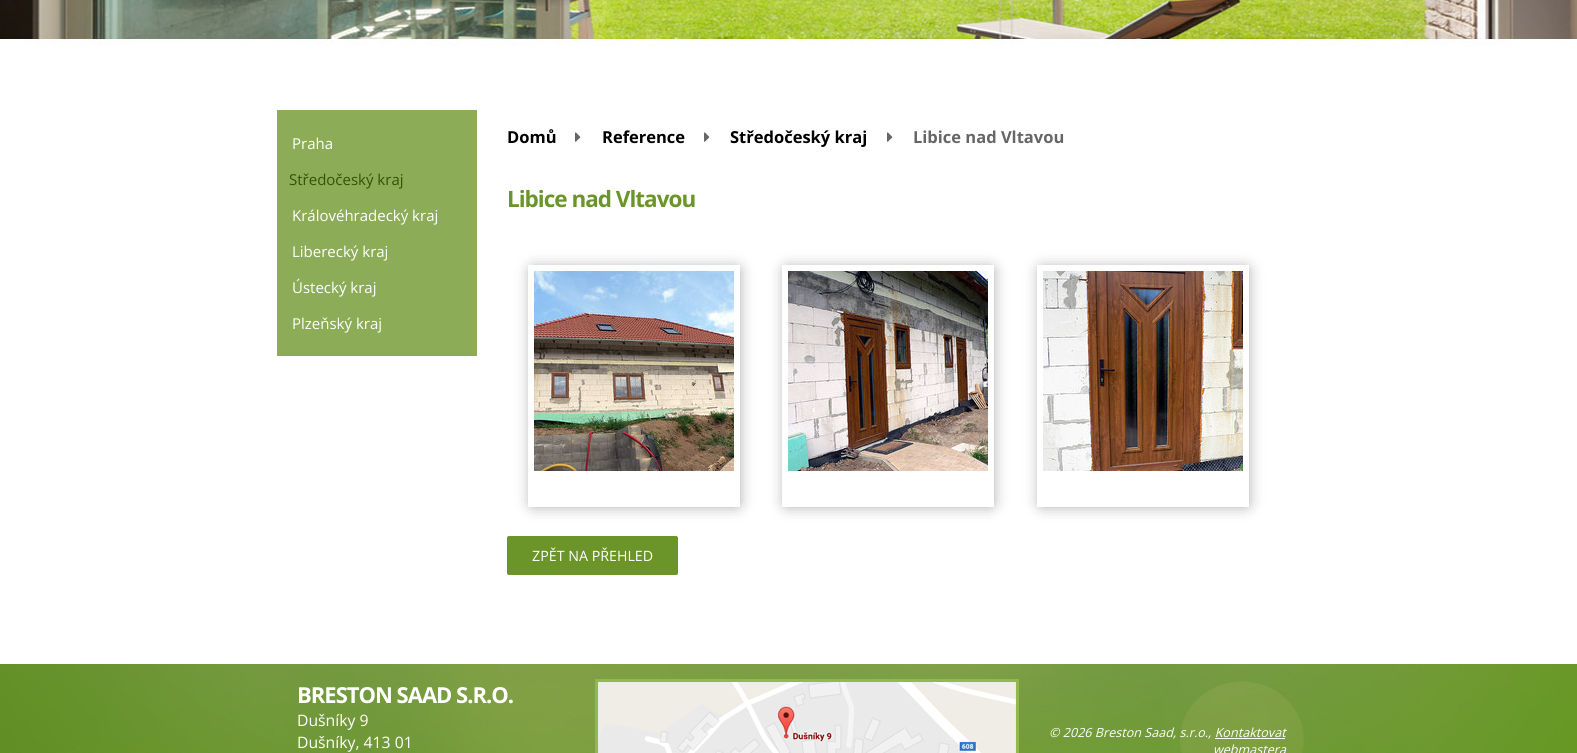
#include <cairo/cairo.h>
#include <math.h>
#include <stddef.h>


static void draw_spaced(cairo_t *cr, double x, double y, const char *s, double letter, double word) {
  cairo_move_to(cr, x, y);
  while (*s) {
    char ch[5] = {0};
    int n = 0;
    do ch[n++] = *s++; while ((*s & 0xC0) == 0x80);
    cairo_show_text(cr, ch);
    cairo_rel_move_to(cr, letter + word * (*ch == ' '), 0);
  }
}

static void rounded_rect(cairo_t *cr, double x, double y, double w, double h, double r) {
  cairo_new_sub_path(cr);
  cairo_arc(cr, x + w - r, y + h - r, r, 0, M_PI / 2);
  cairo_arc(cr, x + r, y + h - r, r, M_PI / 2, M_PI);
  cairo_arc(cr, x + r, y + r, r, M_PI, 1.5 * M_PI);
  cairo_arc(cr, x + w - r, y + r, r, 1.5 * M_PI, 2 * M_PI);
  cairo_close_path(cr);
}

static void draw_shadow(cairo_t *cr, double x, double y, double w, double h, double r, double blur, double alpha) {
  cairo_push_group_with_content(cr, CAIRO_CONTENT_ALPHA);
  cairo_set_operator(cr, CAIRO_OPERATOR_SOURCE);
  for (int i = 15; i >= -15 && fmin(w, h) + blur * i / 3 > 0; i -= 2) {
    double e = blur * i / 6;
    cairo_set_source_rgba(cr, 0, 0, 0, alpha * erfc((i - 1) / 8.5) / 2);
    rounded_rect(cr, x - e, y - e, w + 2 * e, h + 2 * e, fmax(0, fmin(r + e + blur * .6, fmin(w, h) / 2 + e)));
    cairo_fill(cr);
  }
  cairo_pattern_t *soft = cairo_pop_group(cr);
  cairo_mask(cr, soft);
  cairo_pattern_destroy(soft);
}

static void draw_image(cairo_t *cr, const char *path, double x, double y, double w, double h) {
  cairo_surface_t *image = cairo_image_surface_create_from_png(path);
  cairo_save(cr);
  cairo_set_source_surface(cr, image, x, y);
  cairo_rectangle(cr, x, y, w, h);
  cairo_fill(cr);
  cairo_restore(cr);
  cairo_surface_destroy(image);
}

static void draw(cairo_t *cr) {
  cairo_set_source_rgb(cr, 1, 1, 1);
  cairo_paint(cr);
  draw_image(cr, "images/1.png", 0, 0, 1577, 46);
  draw_image(cr, "images/2.png", 314, 0, 270, 6);
  cairo_set_source_rgb(cr, 140 / 255.0, 172 / 255.0, 87 / 255.0);
  cairo_rectangle(cr, 277, 110, 200, 246);
  cairo_fill(cr);
  draw_image(cr, "images/3.png", 575, 132, 6, 10);
  draw_image(cr, "images/3.png", 704, 132, 6, 10);
  draw_image(cr, "images/3.png", 887, 132, 6, 10);
  cairo_save(cr);
  cairo_set_fill_rule(cr, CAIRO_FILL_RULE_EVEN_ODD);
  cairo_new_path(cr);
  cairo_move_to(cr, 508, 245);
  cairo_line_to(cr, 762, 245);
  cairo_line_to(cr, 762, 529);
  cairo_line_to(cr, 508, 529);
  cairo_close_path(cr);
  cairo_move_to(cr, 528, 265);
  cairo_line_to(cr, 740, 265);
  cairo_line_to(cr, 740, 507);
  cairo_line_to(cr, 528, 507);
  cairo_close_path(cr);
  cairo_clip(cr);
  cairo_set_source_rgb(cr, 136 / 255.0, 136 / 255.0, 136 / 255.0);
  draw_shadow(cr, 533, 270, 204, 234, 0, 8, 1);
  cairo_restore(cr);
  draw_image(cr, "images/4.png", 534, 271, 200, 200);
  cairo_save(cr);
  cairo_set_fill_rule(cr, CAIRO_FILL_RULE_EVEN_ODD);
  cairo_new_path(cr);
  cairo_move_to(cr, 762, 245);
  cairo_line_to(cr, 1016, 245);
  cairo_line_to(cr, 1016, 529);
  cairo_line_to(cr, 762, 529);
  cairo_close_path(cr);
  cairo_move_to(cr, 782, 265);
  cairo_line_to(cr, 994, 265);
  cairo_line_to(cr, 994, 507);
  cairo_line_to(cr, 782, 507);
  cairo_close_path(cr);
  cairo_clip(cr);
  cairo_set_source_rgb(cr, 136 / 255.0, 136 / 255.0, 136 / 255.0);
  draw_shadow(cr, 787, 270, 204, 234, 0, 8, 1);
  cairo_restore(cr);
  draw_image(cr, "images/5.png", 788, 271, 200, 200);
  cairo_save(cr);
  cairo_set_fill_rule(cr, CAIRO_FILL_RULE_EVEN_ODD);
  cairo_new_path(cr);
  cairo_move_to(cr, 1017, 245);
  cairo_line_to(cr, 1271, 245);
  cairo_line_to(cr, 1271, 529);
  cairo_line_to(cr, 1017, 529);
  cairo_close_path(cr);
  cairo_move_to(cr, 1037, 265);
  cairo_line_to(cr, 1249, 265);
  cairo_line_to(cr, 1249, 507);
  cairo_line_to(cr, 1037, 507);
  cairo_close_path(cr);
  cairo_clip(cr);
  cairo_set_source_rgb(cr, 136 / 255.0, 136 / 255.0, 136 / 255.0);
  draw_shadow(cr, 1042, 270, 204, 234, 0, 8, 1);
  cairo_restore(cr);
  draw_image(cr, "images/6.png", 1043, 271, 200, 200);
  cairo_set_source_rgb(cr, 107 / 255.0, 149 / 255.0, 41 / 255.0);
  rounded_rect(cr, 507, 536, 171, 39, 2);
  cairo_fill(cr);
  draw_image(cr, "images/7.png", 0, 664, 1577, 89);
  draw_image(cr, "images/8.png", 595, 679, 424, 74);
  cairo_set_source_rgb(cr, 1, 1, 1);
  cairo_rectangle(cr, 1215, 738, 70, 1);
  cairo_fill(cr);
  cairo_select_font_face(cr, "Open Sans", CAIRO_FONT_SLANT_NORMAL, CAIRO_FONT_WEIGHT_NORMAL);
  cairo_set_font_size(cr, 15);
  cairo_move_to(cr, 292, 149);
  cairo_show_text(cr, "Praha");
  cairo_set_source_rgb(cr, 53 / 255.0, 82 / 255.0, 6 / 255.0);
  cairo_move_to(cr, 289, 185);
  cairo_show_text(cr, "Středočeský kraj");
  cairo_set_source_rgb(cr, 1, 1, 1);
  cairo_move_to(cr, 292, 221);
  cairo_show_text(cr, "Královéhradecký kraj");
  cairo_move_to(cr, 292, 257);
  cairo_show_text(cr, "Liberecký kraj");
  cairo_move_to(cr, 292, 293);
  cairo_show_text(cr, "Ústecký kraj");
  cairo_move_to(cr, 292, 329);
  cairo_show_text(cr, "Plzeňský kraj");
  cairo_select_font_face(cr, "Open Sans", CAIRO_FONT_SLANT_NORMAL, CAIRO_FONT_WEIGHT_BOLD);
  cairo_set_font_size(cr, 16.5);
  cairo_set_source_rgb(cr, 0, 0, 0);
  cairo_move_to(cr, 507, 143);
  cairo_show_text(cr, "Domů");
  cairo_move_to(cr, 602, 143);
  cairo_show_text(cr, "Reference");
  cairo_move_to(cr, 730, 143);
  cairo_show_text(cr, "Středočeský kraj");
  cairo_set_source_rgb(cr, 102 / 255.0, 102 / 255.0, 102 / 255.0);
  cairo_move_to(cr, 913, 143);
  cairo_show_text(cr, "Libice nad Vltavou");
  cairo_set_font_size(cr, 22.5);
  cairo_set_source_rgb(cr, 107 / 255.0, 149 / 255.0, 41 / 255.0);
  draw_spaced(cr, 507, 207, "Libice nad Vltavou", -1, 0);
  cairo_select_font_face(cr, "Open Sans", CAIRO_FONT_SLANT_NORMAL, CAIRO_FONT_WEIGHT_NORMAL);
  cairo_set_font_size(cr, 14.25);
  cairo_set_source_rgb(cr, 1, 1, 1);
  cairo_move_to(cr, 532, 561);
  cairo_show_text(cr, "ZPĚT NA PŘEHLED");
  cairo_select_font_face(cr, "Open Sans", CAIRO_FONT_SLANT_NORMAL, CAIRO_FONT_WEIGHT_BOLD);
  cairo_set_font_size(cr, 22);
  draw_spaced(cr, 297, 703, "BRESTON SAAD S.R.O.", -1, 0);
  cairo_select_font_face(cr, "Open Sans", CAIRO_FONT_SLANT_NORMAL, CAIRO_FONT_WEIGHT_NORMAL);
  cairo_set_font_size(cr, 15.75);
  cairo_move_to(cr, 297, 726);
  cairo_show_text(cr, "Dušníky 9");
  cairo_move_to(cr, 297, 748);
  cairo_show_text(cr, "Dušníky, 413 01");
  cairo_select_font_face(cr, "Open Sans", CAIRO_FONT_SLANT_ITALIC, CAIRO_FONT_WEIGHT_NORMAL);
  cairo_set_font_size(cr, 12.6);
  cairo_move_to(cr, 1049, 737);
  cairo_show_text(cr, "© 2026 Breston Saad, s.r.o., Kontaktovat");
  cairo_move_to(cr, 1213, 754);
  cairo_show_text(cr, "webmastera");
}

int main(void) {
  cairo_surface_t *surface = cairo_image_surface_create(CAIRO_FORMAT_RGB24, 1577, 753);
  cairo_t *cr = cairo_create(surface);
  cairo_font_options_t *options = cairo_font_options_create();
  cairo_font_options_set_hint_metrics(options, CAIRO_HINT_METRICS_OFF);
  cairo_font_options_set_hint_style(options, CAIRO_HINT_STYLE_NONE);
  cairo_set_font_options(cr, options);
  cairo_set_miter_limit(cr, 4);
  draw(cr);
  cairo_surface_write_to_png(surface, "out.png");
  cairo_font_options_destroy(options);
  cairo_destroy(cr);
  cairo_surface_destroy(surface);
  return 0;
}
